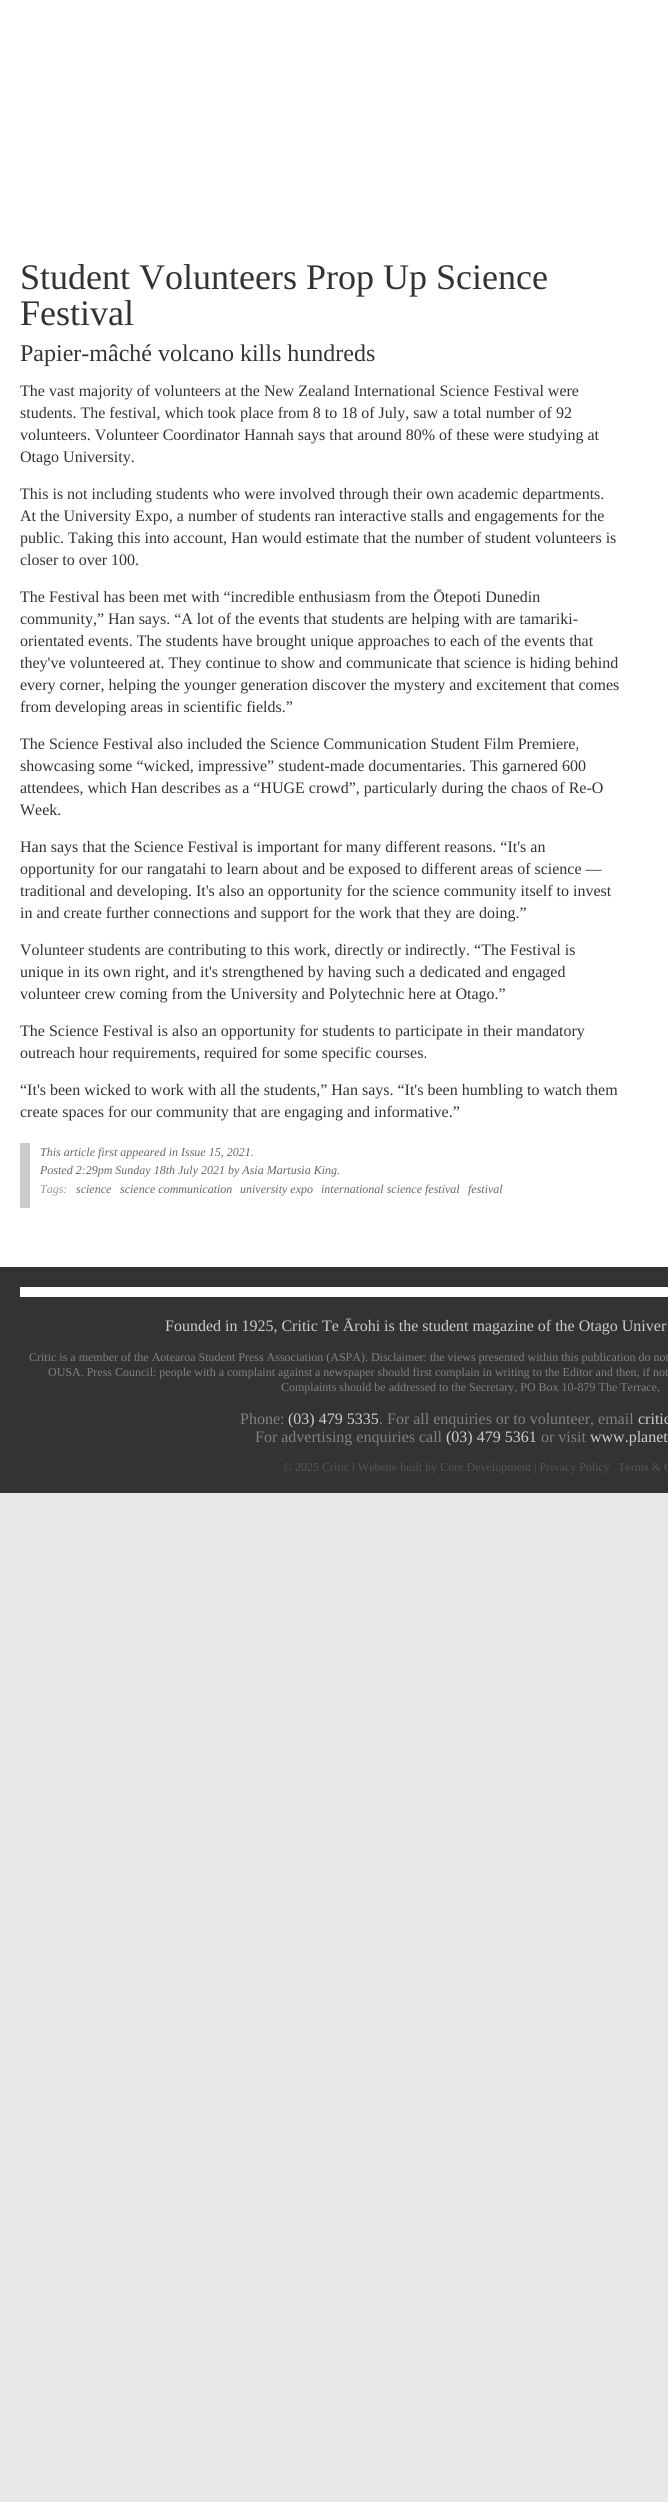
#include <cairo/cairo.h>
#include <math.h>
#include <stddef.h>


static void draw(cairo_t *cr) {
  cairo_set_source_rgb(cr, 231 / 255.0, 231 / 255.0, 231 / 255.0);
  cairo_paint(cr);
  cairo_set_source_rgb(cr, 1, 1, 1);
  cairo_rectangle(cr, 0, 0, 668, 1267);
  cairo_fill(cr);
  cairo_set_source_rgb(cr, 204 / 255.0, 204 / 255.0, 204 / 255.0);
  cairo_rectangle(cr, 20, 1143, 10, 65);
  cairo_fill(cr);
  cairo_set_source_rgb(cr, 51 / 255.0, 51 / 255.0, 51 / 255.0);
  cairo_rectangle(cr, 0, 1267, 668, 226);
  cairo_fill(cr);
  cairo_set_source_rgb(cr, 1, 1, 1);
  cairo_rectangle(cr, 20, 1287, 648, 10);
  cairo_fill(cr);
  cairo_select_font_face(cr, "Liberation Serif", CAIRO_FONT_SLANT_NORMAL, CAIRO_FONT_WEIGHT_NORMAL);
  cairo_set_font_size(cr, 36);
  cairo_set_source_rgb(cr, 51 / 255.0, 51 / 255.0, 51 / 255.0);
  cairo_move_to(cr, 20, 289);
  cairo_show_text(cr, "Student Volunteers Prop Up Science");
  cairo_move_to(cr, 20, 325);
  cairo_show_text(cr, "Festival");
  cairo_set_font_size(cr, 24);
  cairo_move_to(cr, 20, 361);
  cairo_show_text(cr, "Papier-mâché volcano kills hundreds");
  cairo_set_font_size(cr, 16);
  cairo_move_to(cr, 20, 396);
  cairo_show_text(cr, "The vast majority of volunteers at the New Zealand International Science Festival were");
  cairo_move_to(cr, 20, 418);
  cairo_show_text(cr, "students. The festival, which took place from 8 to 18 of July, saw a total number of 92");
  cairo_move_to(cr, 20, 440);
  cairo_show_text(cr, "volunteers. Volunteer Coordinator Hannah says that around 80% of these were studying at");
  cairo_move_to(cr, 20, 462);
  cairo_show_text(cr, "Otago University.");
  cairo_move_to(cr, 20, 499);
  cairo_show_text(cr, "This is not including students who were involved through their own academic departments.");
  cairo_move_to(cr, 20, 521);
  cairo_show_text(cr, "At the University Expo, a number of students ran interactive stalls and engagements for the");
  cairo_move_to(cr, 20, 543);
  cairo_show_text(cr, "public. Taking this into account, Han would estimate that the number of student volunteers is");
  cairo_move_to(cr, 20, 565);
  cairo_show_text(cr, "closer to over 100.");
  cairo_move_to(cr, 20, 602);
  cairo_show_text(cr, "The Festival has been met with “incredible enthusiasm from the Ōtepoti Dunedin");
  cairo_move_to(cr, 20, 624);
  cairo_show_text(cr, "community,” Han says. “A lot of the events that students are helping with are tamariki-");
  cairo_move_to(cr, 20, 646);
  cairo_show_text(cr, "orientated events. The students have brought unique approaches to each of the events that");
  cairo_move_to(cr, 20, 668);
  cairo_show_text(cr, "they've volunteered at. They continue to show and communicate that science is hiding behind");
  cairo_move_to(cr, 20, 690);
  cairo_show_text(cr, "every corner, helping the younger generation discover the mystery and excitement that comes");
  cairo_move_to(cr, 20, 712);
  cairo_show_text(cr, "from developing areas in scientific fields.”");
  cairo_move_to(cr, 20, 749);
  cairo_show_text(cr, "The Science Festival also included the Science Communication Student Film Premiere,");
  cairo_move_to(cr, 20, 771);
  cairo_show_text(cr, "showcasing some “wicked, impressive” student-made documentaries. This garnered 600");
  cairo_move_to(cr, 20, 793);
  cairo_show_text(cr, "attendees, which Han describes as a “HUGE crowd”, particularly during the chaos of Re-O");
  cairo_move_to(cr, 20, 815);
  cairo_show_text(cr, "Week.");
  cairo_move_to(cr, 20, 852);
  cairo_show_text(cr, "Han says that the Science Festival is important for many different reasons. “It's an");
  cairo_move_to(cr, 20, 874);
  cairo_show_text(cr, "opportunity for our rangatahi to learn about and be exposed to different areas of science —");
  cairo_move_to(cr, 20, 896);
  cairo_show_text(cr, "traditional and developing. It's also an opportunity for the science community itself to invest");
  cairo_move_to(cr, 20, 918);
  cairo_show_text(cr, "in and create further connections and support for the work that they are doing.”");
  cairo_move_to(cr, 20, 955);
  cairo_show_text(cr, "Volunteer students are contributing to this work, directly or indirectly. “The Festival is");
  cairo_move_to(cr, 20, 977);
  cairo_show_text(cr, "unique in its own right, and it's strengthened by having such a dedicated and engaged");
  cairo_move_to(cr, 20, 999);
  cairo_show_text(cr, "volunteer crew coming from the University and Polytechnic here at Otago.”");
  cairo_move_to(cr, 20, 1036);
  cairo_show_text(cr, "The Science Festival is also an opportunity for students to participate in their mandatory");
  cairo_move_to(cr, 20, 1058);
  cairo_show_text(cr, "outreach hour requirements, required for some specific courses.");
  cairo_move_to(cr, 20, 1095);
  cairo_show_text(cr, "“It's been wicked to work with all the students,” Han says. “It's been humbling to watch them");
  cairo_move_to(cr, 20, 1117);
  cairo_show_text(cr, "create spaces for our community that are engaging and informative.”");
  cairo_select_font_face(cr, "Liberation Serif", CAIRO_FONT_SLANT_ITALIC, CAIRO_FONT_WEIGHT_NORMAL);
  cairo_set_font_size(cr, 12);
  cairo_set_source_rgb(cr, 102 / 255.0, 102 / 255.0, 102 / 255.0);
  cairo_move_to(cr, 40, 1156);
  cairo_show_text(cr, "This article first appeared in Issue 15, 2021.");
  cairo_move_to(cr, 40, 1174);
  cairo_show_text(cr, "Posted 2:29pm Sunday 18th July 2021 by Asia Martusia King.");
  cairo_set_source_rgb(cr, 153 / 255.0, 153 / 255.0, 153 / 255.0);
  cairo_move_to(cr, 40, 1193);
  cairo_show_text(cr, "Tags:");
  cairo_set_source_rgb(cr, 102 / 255.0, 102 / 255.0, 102 / 255.0);
  cairo_move_to(cr, 76, 1193);
  cairo_show_text(cr, "science");
  cairo_move_to(cr, 120, 1193);
  cairo_show_text(cr, "science communication");
  cairo_move_to(cr, 240, 1193);
  cairo_show_text(cr, "university expo");
  cairo_move_to(cr, 321, 1193);
  cairo_show_text(cr, "international science festival");
  cairo_move_to(cr, 468, 1193);
  cairo_show_text(cr, "festival");
  cairo_select_font_face(cr, "Liberation Serif", CAIRO_FONT_SLANT_NORMAL, CAIRO_FONT_WEIGHT_NORMAL);
  cairo_set_font_size(cr, 16);
  cairo_set_source_rgb(cr, 204 / 255.0, 204 / 255.0, 204 / 255.0);
  cairo_move_to(cr, 165, 1331);
  cairo_show_text(cr, "Founded in 1925, Critic Te Ārohi is the student magazine of the Otago Univer");
  cairo_set_font_size(cr, 12);
  cairo_set_source_rgb(cr, 128 / 255.0, 128 / 255.0, 128 / 255.0);
  cairo_move_to(cr, 29, 1361);
  cairo_show_text(cr, "Critic is a member of the Aotearoa Student Press Association (ASPA). Disclaimer: the views presented within this publication do not");
  cairo_move_to(cr, 48, 1376);
  cairo_show_text(cr, "OUSA. Press Council: people with a complaint against a newspaper should first complain in writing to the Editor and then, if not");
  cairo_move_to(cr, 281, 1391);
  cairo_show_text(cr, "Complaints should be addressed to the Secretary, PO Box 10-879 The Terrace,");
  cairo_set_font_size(cr, 16);
  cairo_move_to(cr, 240, 1424);
  cairo_show_text(cr, "Phone:");
  cairo_set_source_rgb(cr, 204 / 255.0, 204 / 255.0, 204 / 255.0);
  cairo_move_to(cr, 288, 1424);
  cairo_show_text(cr, "(03) 479 5335");
  cairo_set_source_rgb(cr, 128 / 255.0, 128 / 255.0, 128 / 255.0);
  cairo_move_to(cr, 379, 1424);
  cairo_show_text(cr, ". For all enquiries or to volunteer, email");
  cairo_set_source_rgb(cr, 204 / 255.0, 204 / 255.0, 204 / 255.0);
  cairo_move_to(cr, 638, 1424);
  cairo_show_text(cr, "critic");
  cairo_set_source_rgb(cr, 128 / 255.0, 128 / 255.0, 128 / 255.0);
  cairo_move_to(cr, 255, 1442);
  cairo_show_text(cr, "For advertising enquiries call");
  cairo_set_source_rgb(cr, 204 / 255.0, 204 / 255.0, 204 / 255.0);
  cairo_move_to(cr, 446, 1442);
  cairo_show_text(cr, "(03) 479 5361");
  cairo_set_source_rgb(cr, 128 / 255.0, 128 / 255.0, 128 / 255.0);
  cairo_move_to(cr, 541, 1442);
  cairo_show_text(cr, "or visit");
  cairo_set_source_rgb(cr, 204 / 255.0, 204 / 255.0, 204 / 255.0);
  cairo_move_to(cr, 590, 1442);
  cairo_show_text(cr, "www.planet");
  cairo_set_font_size(cr, 12);
  cairo_set_source_rgb(cr, 85 / 255.0, 85 / 255.0, 85 / 255.0);
  cairo_move_to(cr, 283, 1471);
  cairo_show_text(cr, "© 2025 Critic | Website built by Core Development | Privacy Policy");
  cairo_move_to(cr, 618, 1471);
  cairo_show_text(cr, "Terms & C");
}

int main(void) {
  cairo_surface_t *surface = cairo_image_surface_create(CAIRO_FORMAT_RGB24, 668, 2502);
  cairo_t *cr = cairo_create(surface);
  cairo_font_options_t *options = cairo_font_options_create();
  cairo_font_options_set_hint_metrics(options, CAIRO_HINT_METRICS_OFF);
  cairo_font_options_set_hint_style(options, CAIRO_HINT_STYLE_NONE);
  cairo_set_font_options(cr, options);
  cairo_set_miter_limit(cr, 4);
  draw(cr);
  cairo_surface_write_to_png(surface, "out.png");
  cairo_font_options_destroy(options);
  cairo_destroy(cr);
  cairo_surface_destroy(surface);
  return 0;
}
